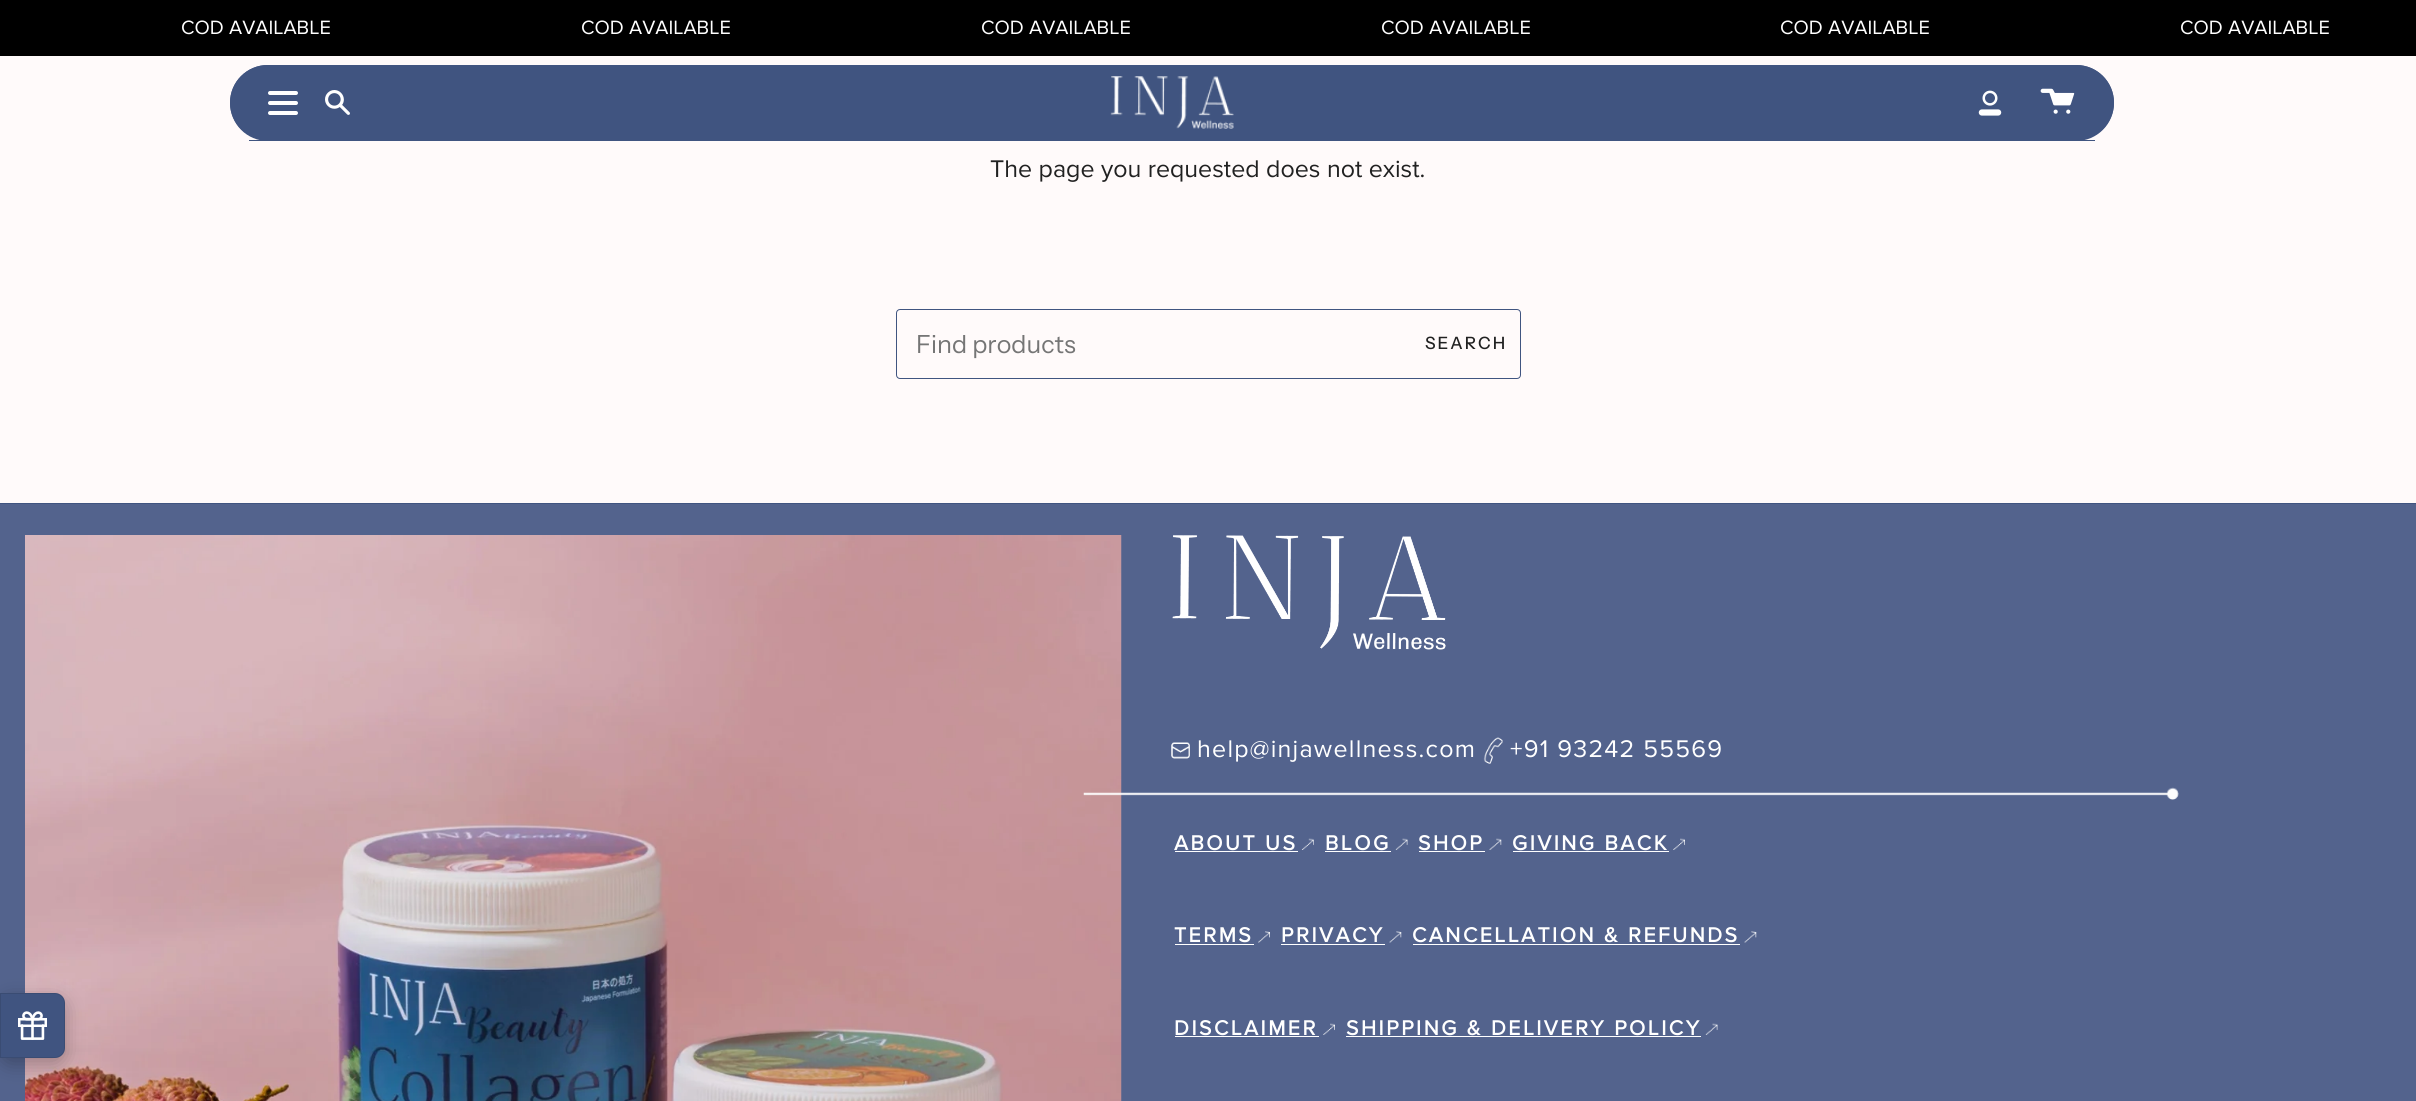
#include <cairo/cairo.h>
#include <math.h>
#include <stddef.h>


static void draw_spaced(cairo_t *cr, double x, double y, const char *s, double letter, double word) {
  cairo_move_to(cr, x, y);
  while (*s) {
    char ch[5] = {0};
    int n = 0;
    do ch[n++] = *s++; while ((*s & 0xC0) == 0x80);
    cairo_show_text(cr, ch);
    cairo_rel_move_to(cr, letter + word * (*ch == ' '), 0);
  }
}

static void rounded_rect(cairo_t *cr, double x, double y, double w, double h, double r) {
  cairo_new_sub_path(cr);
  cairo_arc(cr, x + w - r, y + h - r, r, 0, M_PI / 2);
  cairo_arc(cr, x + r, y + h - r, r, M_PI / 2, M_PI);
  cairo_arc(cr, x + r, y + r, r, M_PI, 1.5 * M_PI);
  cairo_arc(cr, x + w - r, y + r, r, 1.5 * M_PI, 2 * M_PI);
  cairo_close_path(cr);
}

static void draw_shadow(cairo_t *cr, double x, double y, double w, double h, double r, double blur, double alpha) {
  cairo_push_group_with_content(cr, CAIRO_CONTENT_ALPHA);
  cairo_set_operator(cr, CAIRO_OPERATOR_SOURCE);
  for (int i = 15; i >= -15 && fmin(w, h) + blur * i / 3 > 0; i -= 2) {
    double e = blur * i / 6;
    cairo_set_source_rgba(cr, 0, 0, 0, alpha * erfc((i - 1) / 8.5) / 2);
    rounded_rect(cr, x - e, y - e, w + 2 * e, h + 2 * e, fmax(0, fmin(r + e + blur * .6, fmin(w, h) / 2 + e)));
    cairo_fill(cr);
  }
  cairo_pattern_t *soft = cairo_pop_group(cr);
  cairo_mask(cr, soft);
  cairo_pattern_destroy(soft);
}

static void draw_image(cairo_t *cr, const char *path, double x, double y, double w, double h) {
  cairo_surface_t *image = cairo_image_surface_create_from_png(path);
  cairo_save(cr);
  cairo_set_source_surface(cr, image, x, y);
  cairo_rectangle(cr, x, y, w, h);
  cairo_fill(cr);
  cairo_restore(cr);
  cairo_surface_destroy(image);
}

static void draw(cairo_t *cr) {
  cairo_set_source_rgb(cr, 1, 250 / 255.0, 250 / 255.0);
  cairo_paint(cr);
  cairo_set_source_rgb(cr, 0, 0, 0);
  cairo_rectangle(cr, 0, 0, 2416, 56);
  cairo_fill(cr);
  cairo_set_source_rgb(cr, 64 / 255.0, 84 / 255.0, 128 / 255.0);
  rounded_rect(cr, 230, 65, 1884, 76, 38);
  cairo_fill(cr);
  cairo_rectangle(cr, 249, 140, 1846, 1);
  cairo_fill(cr);
  rounded_rect(cr, 230, 65, 1884, 75, 37.5);
  cairo_fill(cr);
  cairo_set_source_rgb(cr, 1, 1, 1);
  rounded_rect(cr, 268, 91, 30, 4, 2);
  cairo_fill(cr);
  rounded_rect(cr, 268, 101, 30, 4, 2);
  cairo_fill(cr);
  rounded_rect(cr, 268, 111, 30, 4, 2);
  cairo_fill(cr);
  draw_image(cr, "images/1.png", 325, 90, 25, 25);
  draw_image(cr, "images/2.png", 1110, 76, 124, 53);
  draw_image(cr, "images/3.png", 1978, 90, 24, 26);
  draw_image(cr, "images/4.png", 2040, 88, 35, 26);
  rounded_rect(cr, 896.5, 309.5, 624, 69, 3.5);
  cairo_set_source_rgb(cr, 64 / 255.0, 84 / 255.0, 128 / 255.0);
  cairo_set_line_width(cr, 1);
  cairo_stroke(cr);
  cairo_set_source_rgb(cr, 83 / 255.0, 99 / 255.0, 141 / 255.0);
  cairo_rectangle(cr, 0, 504, 2416, 597);
  cairo_fill(cr);
  draw_image(cr, "images/6.png", 25, 535, 1097, 566);
  cairo_set_source_rgb(cr, 0, 0, 0);
  draw_shadow(cr, 0, 999, 65, 65, 10, 9.5, 0.25);
  cairo_set_source_rgb(cr, 64 / 255.0, 84 / 255.0, 128 / 255.0);
  cairo_new_path(cr);
  cairo_move_to(cr, 0, 993);
  cairo_line_to(cr, 55, 993);
  cairo_curve_to(cr, 60.5, 993, 65, 997.5, 65, 1003);
  cairo_line_to(cr, 65, 1048);
  cairo_curve_to(cr, 65, 1053.5, 60.5, 1058, 55, 1058);
  cairo_line_to(cr, 0, 1058);
  cairo_close_path(cr);
  cairo_fill(cr);
  cairo_new_path(cr);
  cairo_move_to(cr, 0.5, 993.5);
  cairo_line_to(cr, 55, 993.5);
  cairo_curve_to(cr, 60, 993.5, 64.5, 998, 64.5, 1003);
  cairo_line_to(cr, 64.5, 1048);
  cairo_curve_to(cr, 64.5, 1053, 60, 1057.5, 55, 1057.5);
  cairo_line_to(cr, 0.5, 1057.5);
  cairo_close_path(cr);
  cairo_set_source_rgba(cr, 0, 0, 0, 0.1);
  cairo_stroke(cr);
  draw_image(cr, "images/5.png", 18, 1011, 29, 29);
  cairo_set_source_rgb(cr, 64 / 255.0, 84 / 255.0, 128 / 255.0);
  cairo_rectangle(cr, 0, 503, 2416, 1);
  cairo_fill(cr);
  draw_image(cr, "images/7.png", 1172, 535, 274, 115);
  draw_image(cr, "images/8.png", 1171, 742, 19, 17);
  draw_image(cr, "images/9.png", 1483, 737, 20, 27);
  draw_image(cr, "images/10.png", 1083, 787, 1096, 13);
  cairo_set_source_rgb(cr, 1, 1, 1);
  cairo_rectangle(cr, 1175, 851, 123, 1);
  cairo_fill(cr);
  draw_image(cr, "images/11.png", 1301, 838, 13, 12);
  cairo_rectangle(cr, 1325, 851, 66, 1);
  cairo_fill(cr);
  draw_image(cr, "images/12.png", 1395, 838, 13, 12);
  cairo_rectangle(cr, 1419, 851, 66, 1);
  cairo_fill(cr);
  draw_image(cr, "images/13.png", 1489, 838, 13, 12);
  cairo_rectangle(cr, 1513, 851, 156, 1);
  cairo_fill(cr);
  draw_image(cr, "images/14.png", 1673, 838, 12, 12);
  cairo_rectangle(cr, 1175, 944, 79, 1);
  cairo_fill(cr);
  draw_image(cr, "images/15.png", 1258, 931, 12, 12);
  cairo_rectangle(cr, 1281, 944, 104, 1);
  cairo_fill(cr);
  draw_image(cr, "images/16.png", 1389, 931, 13, 12);
  cairo_rectangle(cr, 1413, 944, 327, 1);
  cairo_fill(cr);
  draw_image(cr, "images/17.png", 1744, 931, 13, 12);
  cairo_rectangle(cr, 1175, 1036, 144, 1);
  cairo_fill(cr);
  draw_image(cr, "images/18.png", 1323, 1023, 12, 12);
  cairo_rectangle(cr, 1346, 1036, 355, 1);
  cairo_fill(cr);
  draw_image(cr, "images/12.png", 1705, 1023, 13, 12);
  cairo_select_font_face(cr, "Proxima Nova", CAIRO_FONT_SLANT_NORMAL, CAIRO_FONT_WEIGHT_NORMAL);
  cairo_set_font_size(cr, 20);
  cairo_move_to(cr, 181, 34);
  cairo_show_text(cr, "COD AVAILABLE");
  cairo_move_to(cr, 581, 34);
  cairo_show_text(cr, "COD AVAILABLE");
  cairo_move_to(cr, 981, 34);
  cairo_show_text(cr, "COD AVAILABLE");
  cairo_move_to(cr, 1381, 34);
  cairo_show_text(cr, "COD AVAILABLE");
  cairo_move_to(cr, 1780, 34);
  cairo_show_text(cr, "COD AVAILABLE");
  cairo_move_to(cr, 2180, 34);
  cairo_show_text(cr, "COD AVAILABLE");
  cairo_set_font_size(cr, 25);
  cairo_set_source_rgb(cr, 33 / 255.0, 33 / 255.0, 33 / 255.0);
  cairo_move_to(cr, 990, 177);
  cairo_show_text(cr, "The page you requested does not exist.");
  cairo_select_font_face(cr, "Instrument Sans", CAIRO_FONT_SLANT_NORMAL, CAIRO_FONT_WEIGHT_NORMAL);
  cairo_set_source_rgb(cr, 117 / 255.0, 117 / 255.0, 117 / 255.0);
  cairo_move_to(cr, 916, 353);
  cairo_show_text(cr, "Find products");
  cairo_select_font_face(cr, "Instrument Sans Medium", CAIRO_FONT_SLANT_NORMAL, CAIRO_FONT_WEIGHT_NORMAL);
  cairo_set_font_size(cr, 17);
  cairo_set_source_rgb(cr, 33 / 255.0, 33 / 255.0, 33 / 255.0);
  draw_spaced(cr, 1425, 349, "SEARCH", 2, 0);
  cairo_select_font_face(cr, "Proxima Nova", CAIRO_FONT_SLANT_NORMAL, CAIRO_FONT_WEIGHT_NORMAL);
  cairo_set_font_size(cr, 25);
  cairo_set_source_rgb(cr, 1, 1, 1);
  draw_spaced(cr, 1197, 757, "help@injawellness.com", 1.25, 0);
  draw_spaced(cr, 1510, 757, "+91 93242 55569", 1.25, 0);
  cairo_select_font_face(cr, "Proxima Nova", CAIRO_FONT_SLANT_NORMAL, CAIRO_FONT_WEIGHT_BOLD);
  cairo_set_font_size(cr, 21.25);
  draw_spaced(cr, 1174, 850, "ABOUT US", 2.5, 0);
  draw_spaced(cr, 1325, 850, "BLOG", 2.5, 0);
  draw_spaced(cr, 1418, 850, "SHOP", 2.5, 0);
  draw_spaced(cr, 1512, 850, "GIVING BACK", 2.5, 0);
  draw_spaced(cr, 1174, 942, "TERMS", 2.5, 0);
  draw_spaced(cr, 1281, 942, "PRIVACY", 2.5, 0);
  draw_spaced(cr, 1412, 942, "CANCELLATION & REFUNDS", 2.5, 0);
  draw_spaced(cr, 1174, 1035, "DISCLAIMER", 2.5, 0);
  draw_spaced(cr, 1346, 1035, "SHIPPING & DELIVERY POLICY", 2.5, 0);
}

int main(void) {
  cairo_surface_t *surface = cairo_image_surface_create(CAIRO_FORMAT_RGB24, 2416, 1101);
  cairo_t *cr = cairo_create(surface);
  cairo_font_options_t *options = cairo_font_options_create();
  cairo_font_options_set_hint_metrics(options, CAIRO_HINT_METRICS_OFF);
  cairo_font_options_set_hint_style(options, CAIRO_HINT_STYLE_NONE);
  cairo_set_font_options(cr, options);
  cairo_set_miter_limit(cr, 4);
  draw(cr);
  cairo_surface_write_to_png(surface, "out.png");
  cairo_font_options_destroy(options);
  cairo_destroy(cr);
  cairo_surface_destroy(surface);
  return 0;
}
